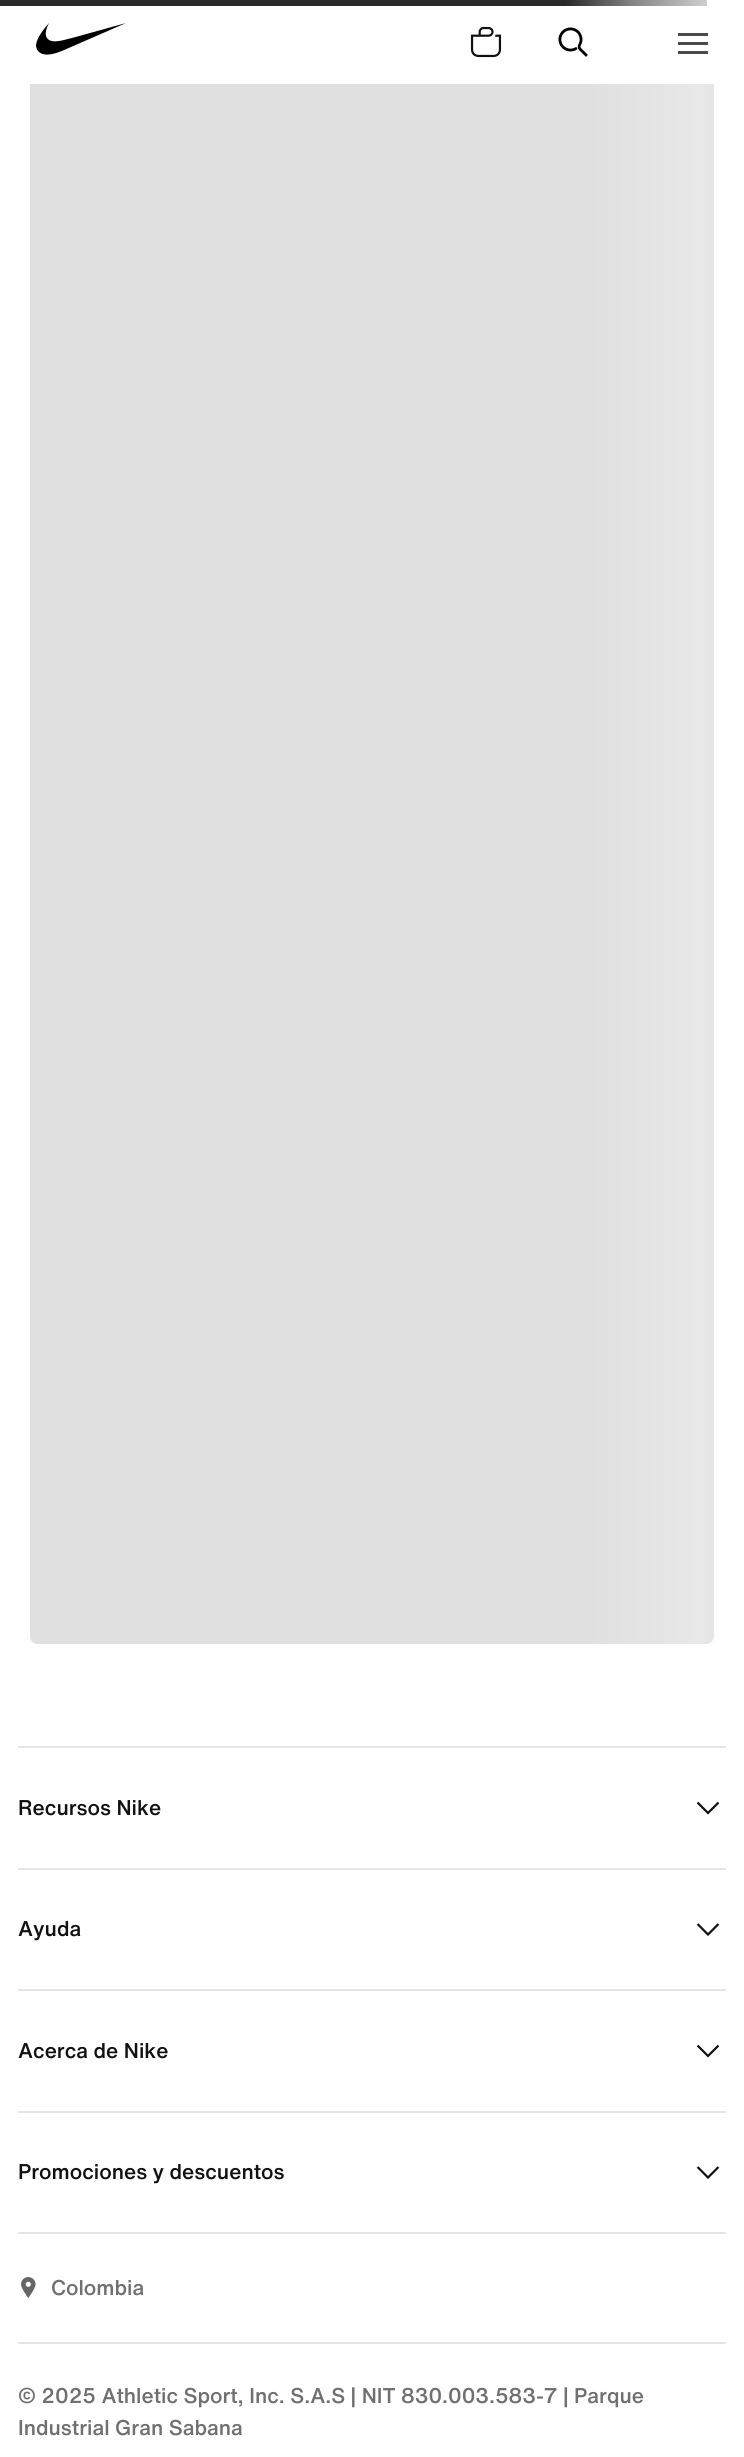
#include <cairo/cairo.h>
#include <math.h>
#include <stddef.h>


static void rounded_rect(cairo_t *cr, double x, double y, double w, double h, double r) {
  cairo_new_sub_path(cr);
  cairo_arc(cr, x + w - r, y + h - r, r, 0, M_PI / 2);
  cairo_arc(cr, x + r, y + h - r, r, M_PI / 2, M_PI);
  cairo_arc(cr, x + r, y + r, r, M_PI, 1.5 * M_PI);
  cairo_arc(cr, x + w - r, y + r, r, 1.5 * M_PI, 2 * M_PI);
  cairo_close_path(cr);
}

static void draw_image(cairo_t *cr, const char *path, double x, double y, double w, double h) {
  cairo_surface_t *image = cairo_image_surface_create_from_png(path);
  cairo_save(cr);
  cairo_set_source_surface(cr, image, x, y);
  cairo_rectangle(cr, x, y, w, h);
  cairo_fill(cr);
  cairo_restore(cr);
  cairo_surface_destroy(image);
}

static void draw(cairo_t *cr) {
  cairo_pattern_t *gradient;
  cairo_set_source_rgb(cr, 1, 1, 1);
  cairo_paint(cr);
  gradient = cairo_pattern_create_linear(0, 3, 707, 3);
  cairo_pattern_add_color_stop_rgba(gradient, 0.8, 41 / 255.0, 41 / 255.0, 41 / 255.0, 1);
  cairo_pattern_add_color_stop_rgba(gradient, 0.9, 136 / 255.0, 136 / 255.0, 136 / 255.0, 1);
  cairo_pattern_add_color_stop_rgba(gradient, 1, 207 / 255.0, 207 / 255.0, 207 / 255.0, 1);
  cairo_set_source(cr, gradient);
  cairo_pattern_destroy(gradient);
  cairo_rectangle(cr, 0, 0, 707, 6);
  cairo_fill(cr);
  gradient = cairo_pattern_create_linear(30, 825, 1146, 825);
  cairo_pattern_add_color_stop_rgba(gradient, 0, 224 / 255.0, 224 / 255.0, 224 / 255.0, 1);
  cairo_pattern_add_color_stop_rgba(gradient, 0.5, 224 / 255.0, 224 / 255.0, 224 / 255.0, 1);
  cairo_pattern_add_color_stop_rgba(gradient, 0.6, 232 / 255.0, 232 / 255.0, 232 / 255.0, 1);
  cairo_pattern_add_color_stop_rgba(gradient, 0.65, 224 / 255.0, 224 / 255.0, 224 / 255.0, 1);
  cairo_pattern_add_color_stop_rgba(gradient, 1, 224 / 255.0, 224 / 255.0, 224 / 255.0, 1);
  cairo_set_source(cr, gradient);
  cairo_pattern_destroy(gradient);
  rounded_rect(cr, 30, 6, 684, 1638, 8);
  cairo_fill(cr);
  cairo_set_source_rgb(cr, 1, 1, 1);
  cairo_rectangle(cr, 30, 6, 684, 78);
  cairo_fill(cr);
  cairo_set_source_rgb(cr, 0, 0, 0);
  cairo_set_fill_rule(cr, CAIRO_FILL_RULE_EVEN_ODD);
  cairo_new_path(cr);
  cairo_move_to(cr, 126, 23);
  cairo_line_to(cr, 71, 47);
  cairo_curve_to(cr, 64, 50, 47, 59, 39, 52);
  cairo_curve_to(cr, 37, 50, 36, 48, 36, 45);
  cairo_curve_to(cr, 37, 37, 44, 29, 49, 23);
  cairo_curve_to(cr, 47, 27, 44, 34, 47, 38);
  cairo_curve_to(cr, 52, 45, 66, 39, 72, 38);
  cairo_close_path(cr);
  cairo_fill(cr);
  draw_image(cr, "images/1.png", 470, 26, 32, 32);
  draw_image(cr, "images/2.png", 558, 27, 30, 30);
  cairo_set_source_rgb(cr, 74 / 255.0, 74 / 255.0, 74 / 255.0);
  cairo_rectangle(cr, 678, 33, 30, 3);
  cairo_fill(cr);
  cairo_rectangle(cr, 678, 42, 30, 3);
  cairo_fill(cr);
  cairo_rectangle(cr, 678, 51, 30, 3);
  cairo_fill(cr);
  cairo_set_source_rgb(cr, 229 / 255.0, 229 / 255.0, 229 / 255.0);
  cairo_rectangle(cr, 18, 1746, 708, 2);
  cairo_fill(cr);
  cairo_rectangle(cr, 18, 1868, 708, 2);
  cairo_fill(cr);
  cairo_new_path(cr);
  cairo_move_to(cr, 697.5, 1802.5);
  cairo_line_to(cr, 708, 1813);
  cairo_line_to(cr, 718.5, 1802.5);
  cairo_set_source_rgb(cr, 17 / 255.0, 17 / 255.0, 17 / 255.0);
  cairo_set_line_width(cr, 2.2);
  cairo_stroke(cr);
  cairo_set_source_rgb(cr, 229 / 255.0, 229 / 255.0, 229 / 255.0);
  cairo_rectangle(cr, 18, 1989, 708, 2);
  cairo_fill(cr);
  cairo_new_path(cr);
  cairo_move_to(cr, 697.5, 1924);
  cairo_line_to(cr, 708, 1934.5);
  cairo_line_to(cr, 718.5, 1924);
  cairo_set_source_rgb(cr, 17 / 255.0, 17 / 255.0, 17 / 255.0);
  cairo_stroke(cr);
  cairo_set_source_rgb(cr, 229 / 255.0, 229 / 255.0, 229 / 255.0);
  cairo_rectangle(cr, 18, 2111, 708, 2);
  cairo_fill(cr);
  cairo_new_path(cr);
  cairo_move_to(cr, 697.5, 2045.5);
  cairo_line_to(cr, 708, 2056);
  cairo_line_to(cr, 718.5, 2045.5);
  cairo_set_source_rgb(cr, 17 / 255.0, 17 / 255.0, 17 / 255.0);
  cairo_stroke(cr);
  cairo_set_source_rgb(cr, 229 / 255.0, 229 / 255.0, 229 / 255.0);
  cairo_rectangle(cr, 18, 2232, 708, 2);
  cairo_fill(cr);
  cairo_new_path(cr);
  cairo_move_to(cr, 697.5, 2167);
  cairo_line_to(cr, 708, 2177.5);
  cairo_line_to(cr, 718.5, 2167);
  cairo_set_source_rgb(cr, 17 / 255.0, 17 / 255.0, 17 / 255.0);
  cairo_stroke(cr);
  cairo_set_source_rgb(cr, 229 / 255.0, 229 / 255.0, 229 / 255.0);
  cairo_rectangle(cr, 18, 2342, 708, 2);
  cairo_fill(cr);
  draw_image(cr, "images/3.png", 21, 2277, 15, 21);
  cairo_select_font_face(cr, "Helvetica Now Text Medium", CAIRO_FONT_SLANT_NORMAL, CAIRO_FONT_WEIGHT_NORMAL);
  cairo_set_font_size(cr, 21);
  cairo_set_source_rgb(cr, 17 / 255.0, 17 / 255.0, 17 / 255.0);
  cairo_move_to(cr, 18, 1815);
  cairo_show_text(cr, "Recursos Nike");
  cairo_move_to(cr, 18, 1936);
  cairo_show_text(cr, "Ayuda");
  cairo_move_to(cr, 18, 2058);
  cairo_show_text(cr, "Acerca de Nike");
  cairo_move_to(cr, 18, 2179);
  cairo_show_text(cr, "Promociones y descuentos");
  cairo_set_source_rgb(cr, 112 / 255.0, 112 / 255.0, 114 / 255.0);
  cairo_move_to(cr, 51, 2295);
  cairo_show_text(cr, "Colombia");
  cairo_move_to(cr, 18, 2403);
  cairo_show_text(cr, "© 2025 Athletic Sport, Inc. S.A.S | NIT 830.003.583-7 | Parque");
  cairo_move_to(cr, 18, 2435);
  cairo_show_text(cr, "Industrial Gran Sabana");
}

int main(void) {
  cairo_surface_t *surface = cairo_image_surface_create(CAIRO_FORMAT_RGB24, 744, 2457);
  cairo_t *cr = cairo_create(surface);
  cairo_font_options_t *options = cairo_font_options_create();
  cairo_font_options_set_hint_metrics(options, CAIRO_HINT_METRICS_OFF);
  cairo_font_options_set_hint_style(options, CAIRO_HINT_STYLE_NONE);
  cairo_set_font_options(cr, options);
  cairo_set_miter_limit(cr, 4);
  draw(cr);
  cairo_surface_write_to_png(surface, "out.png");
  cairo_font_options_destroy(options);
  cairo_destroy(cr);
  cairo_surface_destroy(surface);
  return 0;
}
